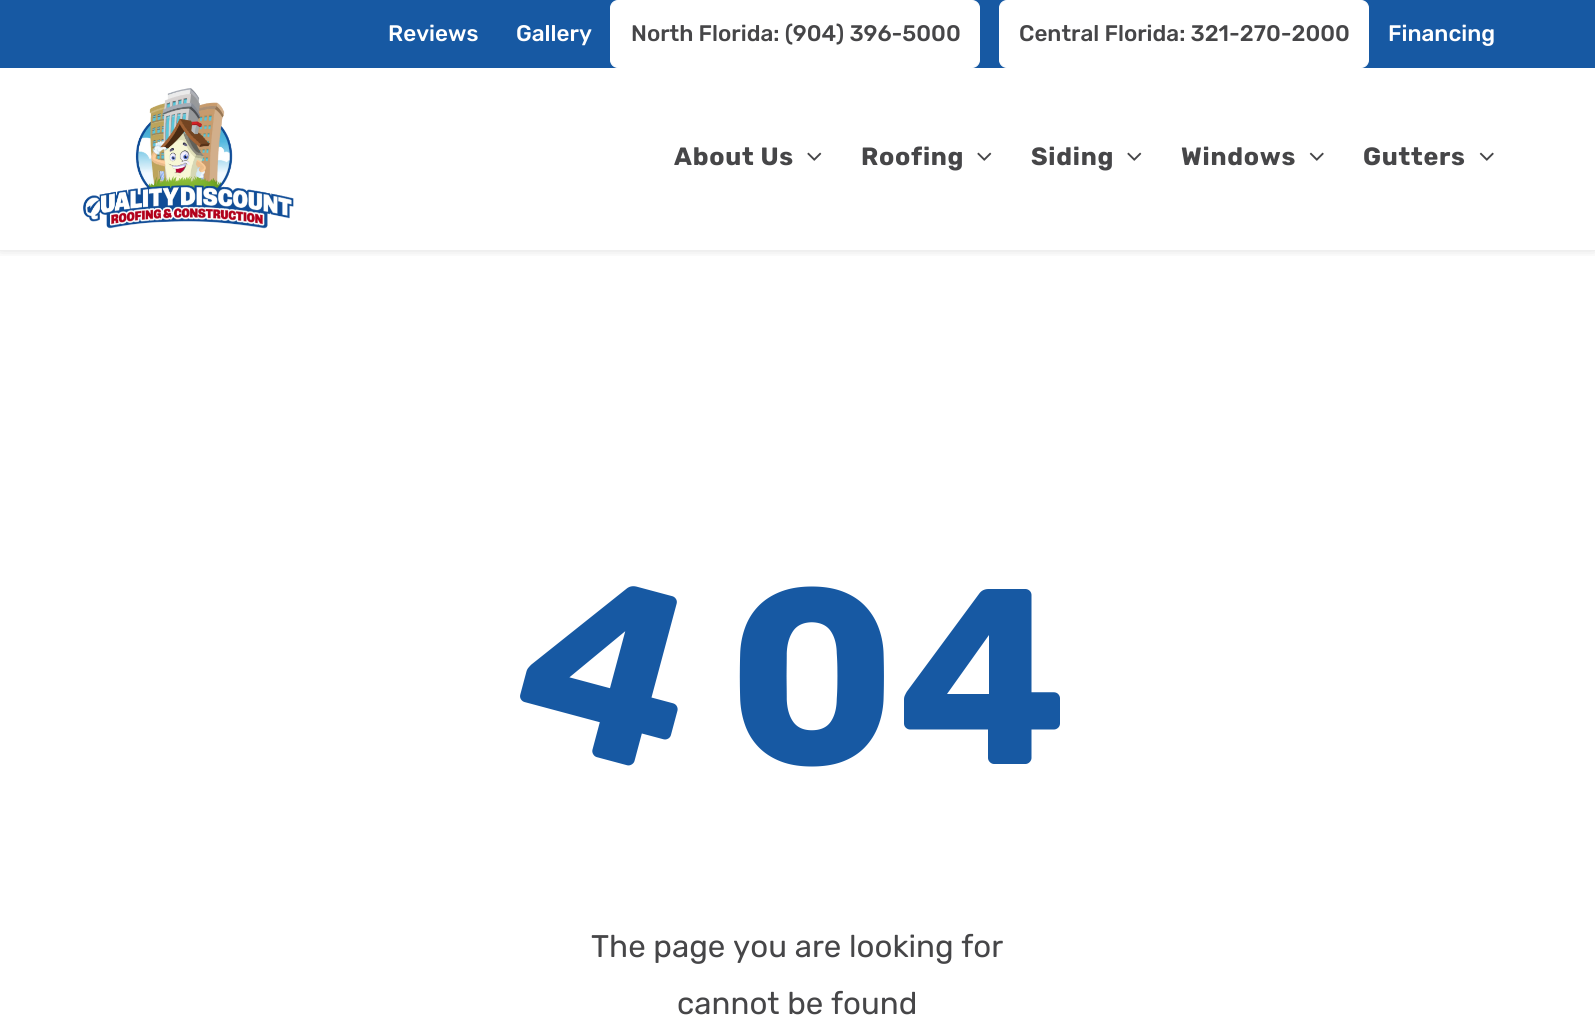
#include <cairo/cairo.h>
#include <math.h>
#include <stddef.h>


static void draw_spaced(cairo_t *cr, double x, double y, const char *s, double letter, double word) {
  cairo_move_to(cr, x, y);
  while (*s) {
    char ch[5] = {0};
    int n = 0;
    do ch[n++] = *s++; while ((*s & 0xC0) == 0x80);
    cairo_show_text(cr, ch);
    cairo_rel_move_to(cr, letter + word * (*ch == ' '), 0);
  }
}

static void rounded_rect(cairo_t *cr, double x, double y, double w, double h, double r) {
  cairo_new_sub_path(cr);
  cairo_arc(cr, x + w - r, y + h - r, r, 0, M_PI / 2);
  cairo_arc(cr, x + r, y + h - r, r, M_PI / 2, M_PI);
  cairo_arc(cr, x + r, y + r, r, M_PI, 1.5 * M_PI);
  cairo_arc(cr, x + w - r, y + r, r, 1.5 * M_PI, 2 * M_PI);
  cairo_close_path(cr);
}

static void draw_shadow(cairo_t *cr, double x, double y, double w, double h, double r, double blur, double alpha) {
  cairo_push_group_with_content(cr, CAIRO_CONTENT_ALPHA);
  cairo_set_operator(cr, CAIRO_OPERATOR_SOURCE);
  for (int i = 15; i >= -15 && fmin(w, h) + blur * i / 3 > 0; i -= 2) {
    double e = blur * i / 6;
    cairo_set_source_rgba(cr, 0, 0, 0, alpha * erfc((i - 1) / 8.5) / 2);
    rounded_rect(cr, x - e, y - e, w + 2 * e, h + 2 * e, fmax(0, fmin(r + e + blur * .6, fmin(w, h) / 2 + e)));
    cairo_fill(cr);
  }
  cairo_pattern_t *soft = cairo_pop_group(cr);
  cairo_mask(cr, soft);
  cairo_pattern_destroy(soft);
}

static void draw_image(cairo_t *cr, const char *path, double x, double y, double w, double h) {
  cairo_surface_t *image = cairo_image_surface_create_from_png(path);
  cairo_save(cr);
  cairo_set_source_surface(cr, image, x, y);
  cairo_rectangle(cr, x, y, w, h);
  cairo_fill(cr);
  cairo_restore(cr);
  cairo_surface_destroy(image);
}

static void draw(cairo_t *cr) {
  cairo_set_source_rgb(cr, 1, 1, 1);
  cairo_paint(cr);
  cairo_save(cr);
  cairo_rectangle(cr, 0, 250, 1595, 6);
  cairo_clip(cr);
  cairo_set_source_rgb(cr, 0, 0, 0);
  draw_shadow(cr, 0, -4, 1595, 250, 0, 7, 0.25);
  cairo_restore(cr);
  cairo_set_source_rgb(cr, 23 / 255.0, 89 / 255.0, 163 / 255.0);
  cairo_rectangle(cr, 0, 0, 1595, 68);
  cairo_fill(cr);
  cairo_set_source_rgb(cr, 1, 1, 1);
  rounded_rect(cr, 610.5, 0.5, 369, 67, 7.5);
  cairo_fill_preserve(cr);
  cairo_set_line_width(cr, 1);
  cairo_stroke(cr);
  rounded_rect(cr, 999.5, 0.5, 369, 67, 7.5);
  cairo_fill_preserve(cr);
  cairo_stroke(cr);
  draw_image(cr, "images/1.png", 83, 88, 211, 141);
  draw_image(cr, "images/2.png", 807, 152, 15, 9);
  draw_image(cr, "images/2.png", 977, 152, 15, 9);
  draw_image(cr, "images/2.png", 1127, 152, 15, 9);
  draw_image(cr, "images/3.png", 1309, 152, 15, 9);
  draw_image(cr, "images/3.png", 1479, 152, 15, 9);
  cairo_select_font_face(cr, "Rubik Medium", CAIRO_FONT_SLANT_NORMAL, CAIRO_FONT_WEIGHT_NORMAL);
  cairo_set_font_size(cr, 22.5);
  cairo_move_to(cr, 388, 41);
  cairo_show_text(cr, "Reviews");
  cairo_move_to(cr, 516, 41);
  cairo_show_text(cr, "Gallery");
  cairo_set_source_rgb(cr, 70 / 255.0, 70 / 255.0, 72 / 255.0);
  cairo_move_to(cr, 631, 41);
  cairo_show_text(cr, "North Florida: (904) 396-5000");
  cairo_move_to(cr, 1019, 41);
  cairo_show_text(cr, "Central Florida: 321-270-2000");
  cairo_set_source_rgb(cr, 1, 1, 1);
  cairo_move_to(cr, 1388, 41);
  cairo_show_text(cr, "Financing");
  cairo_select_font_face(cr, "Rubik", CAIRO_FONT_SLANT_NORMAL, CAIRO_FONT_WEIGHT_BOLD);
  cairo_set_font_size(cr, 25);
  cairo_set_source_rgb(cr, 70 / 255.0, 70 / 255.0, 72 / 255.0);
  draw_spaced(cr, 674, 165, "About Us", 0.75, 0);
  draw_spaced(cr, 861, 165, "Roofing", 0.75, 0);
  draw_spaced(cr, 1031, 165, "Siding", 0.75, 0);
  draw_spaced(cr, 1181, 165, "Windows", 0.75, 0);
  draw_spaced(cr, 1363, 165, "Gutters", 0.75, 0);
  cairo_set_font_size(cr, 250);
  cairo_set_source_rgb(cr, 23 / 255.0, 89 / 255.0, 163 / 255.0);
  cairo_save(cr);
  cairo_translate(cr, 503, 732);
  cairo_rotate(cr, 15 * M_PI / 180);
  cairo_move_to(cr, 0, 0);
  cairo_show_text(cr, "4");
  cairo_restore(cr);
  cairo_move_to(cr, 727, 764);
  cairo_show_text(cr, "04");
  cairo_select_font_face(cr, "Rubik", CAIRO_FONT_SLANT_NORMAL, CAIRO_FONT_WEIGHT_NORMAL);
  cairo_set_font_size(cr, 31.25);
  cairo_set_source_rgb(cr, 70 / 255.0, 70 / 255.0, 72 / 255.0);
  cairo_move_to(cr, 591, 957);
  cairo_show_text(cr, "The page you are looking for");
  cairo_move_to(cr, 677, 1014);
  cairo_show_text(cr, "cannot be found");
}

int main(void) {
  cairo_surface_t *surface = cairo_image_surface_create(CAIRO_FORMAT_RGB24, 1595, 1022);
  cairo_t *cr = cairo_create(surface);
  cairo_font_options_t *options = cairo_font_options_create();
  cairo_font_options_set_hint_metrics(options, CAIRO_HINT_METRICS_OFF);
  cairo_font_options_set_hint_style(options, CAIRO_HINT_STYLE_NONE);
  cairo_set_font_options(cr, options);
  cairo_set_miter_limit(cr, 4);
  draw(cr);
  cairo_surface_write_to_png(surface, "out.png");
  cairo_font_options_destroy(options);
  cairo_destroy(cr);
  cairo_surface_destroy(surface);
  return 0;
}
